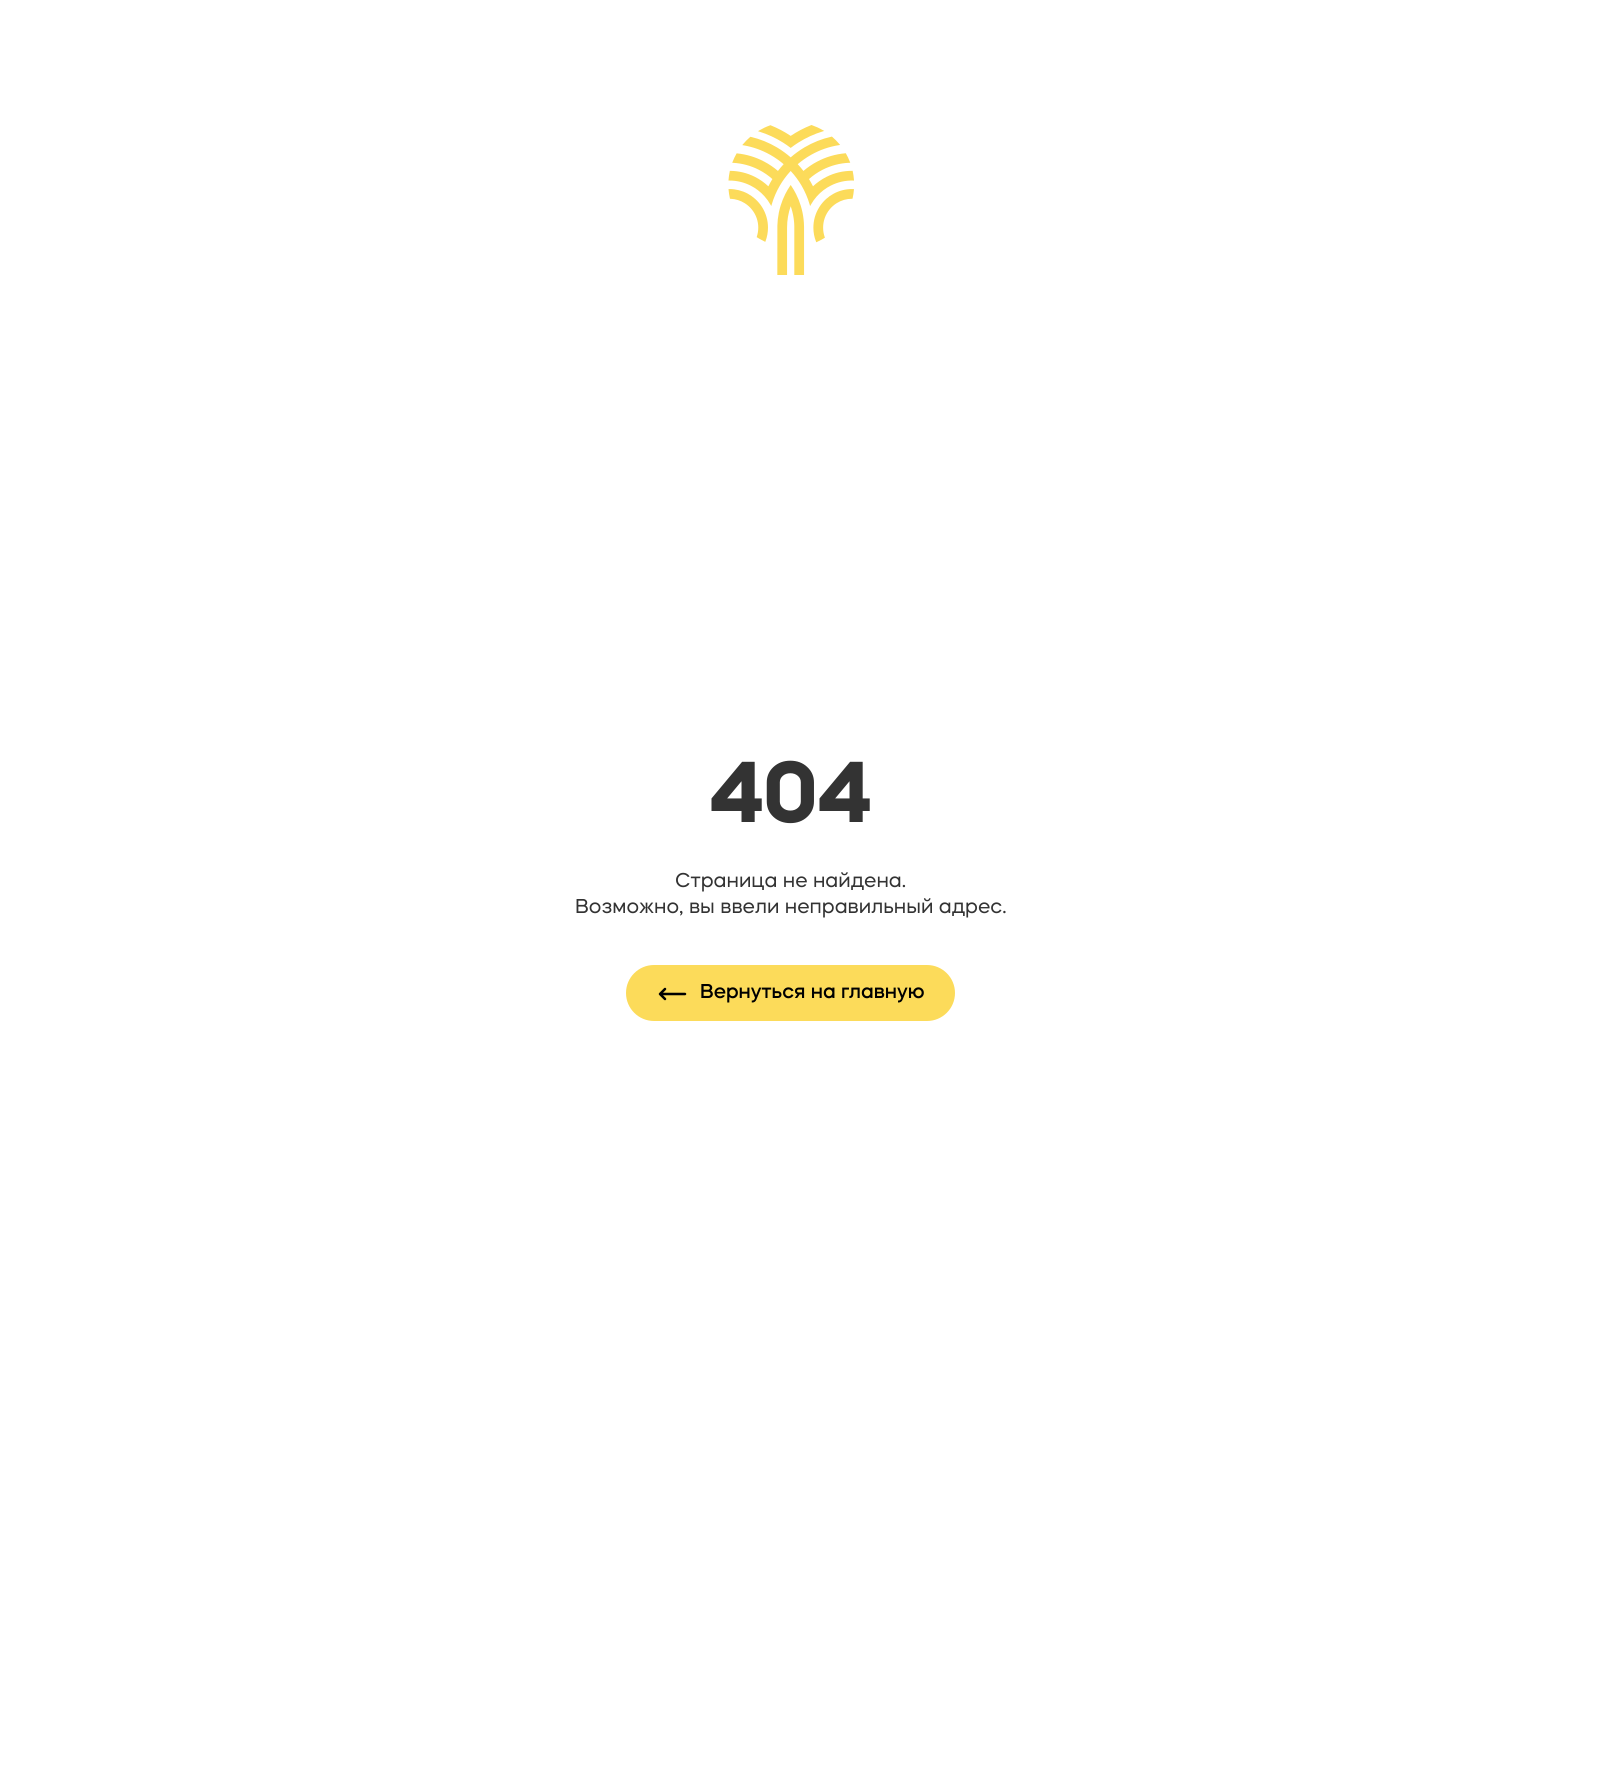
#include <cairo/cairo.h>
#include <math.h>
#include <stddef.h>


static void rounded_rect(cairo_t *cr, double x, double y, double w, double h, double r) {
  cairo_new_sub_path(cr);
  cairo_arc(cr, x + w - r, y + h - r, r, 0, M_PI / 2);
  cairo_arc(cr, x + r, y + h - r, r, M_PI / 2, M_PI);
  cairo_arc(cr, x + r, y + r, r, M_PI, 1.5 * M_PI);
  cairo_arc(cr, x + w - r, y + r, r, 1.5 * M_PI, 2 * M_PI);
  cairo_close_path(cr);
}

static void draw_image(cairo_t *cr, const char *path, double x, double y, double w, double h) {
  cairo_surface_t *image = cairo_image_surface_create_from_png(path);
  cairo_save(cr);
  cairo_set_source_surface(cr, image, x, y);
  cairo_rectangle(cr, x, y, w, h);
  cairo_fill(cr);
  cairo_restore(cr);
  cairo_surface_destroy(image);
}

static void draw(cairo_t *cr) {
  cairo_set_source_rgb(cr, 1, 1, 1);
  cairo_paint(cr);
  draw_image(cr, "images/1.png", 728, 125, 126, 150);
  cairo_set_source_rgb(cr, 252 / 255.0, 219 / 255.0, 90 / 255.0);
  rounded_rect(cr, 626, 965, 329, 56, 28);
  cairo_fill(cr);
  cairo_new_path(cr);
  cairo_move_to(cr, 665, 989);
  cairo_line_to(cr, 660, 994);
  cairo_line_to(cr, 665, 999);
  cairo_move_to(cr, 660, 994);
  cairo_line_to(cr, 685, 994);
  cairo_set_source_rgb(cr, 0, 0, 0);
  cairo_set_line_width(cr, 2.5);
  cairo_set_line_cap(cr, CAIRO_LINE_CAP_ROUND);
  cairo_set_line_join(cr, CAIRO_LINE_JOIN_ROUND);
  cairo_stroke(cr);
  cairo_select_font_face(cr, "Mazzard", CAIRO_FONT_SLANT_NORMAL, CAIRO_FONT_WEIGHT_BOLD);
  cairo_set_font_size(cr, 86);
  cairo_set_source_rgb(cr, 51 / 255.0, 51 / 255.0, 51 / 255.0);
  cairo_move_to(cr, 709, 822);
  cairo_show_text(cr, "404");
  cairo_select_font_face(cr, "Mazzard", CAIRO_FONT_SLANT_NORMAL, CAIRO_FONT_WEIGHT_NORMAL);
  cairo_set_font_size(cr, 20);
  cairo_move_to(cr, 675, 887);
  cairo_show_text(cr, "Страница не найдена.");
  cairo_move_to(cr, 575, 913);
  cairo_show_text(cr, "Возможно, вы ввели неправильный адрес.");
  cairo_select_font_face(cr, "Mazzard Medium", CAIRO_FONT_SLANT_NORMAL, CAIRO_FONT_WEIGHT_NORMAL);
  cairo_set_source_rgb(cr, 0, 0, 0);
  cairo_move_to(cr, 700, 998);
  cairo_show_text(cr, "Вернуться на главную");
}

int main(void) {
  cairo_surface_t *surface = cairo_image_surface_create(CAIRO_FORMAT_RGB24, 1599, 1779);
  cairo_t *cr = cairo_create(surface);
  cairo_font_options_t *options = cairo_font_options_create();
  cairo_font_options_set_hint_metrics(options, CAIRO_HINT_METRICS_OFF);
  cairo_font_options_set_hint_style(options, CAIRO_HINT_STYLE_NONE);
  cairo_set_font_options(cr, options);
  cairo_set_miter_limit(cr, 4);
  draw(cr);
  cairo_surface_write_to_png(surface, "out.png");
  cairo_font_options_destroy(options);
  cairo_destroy(cr);
  cairo_surface_destroy(surface);
  return 0;
}
